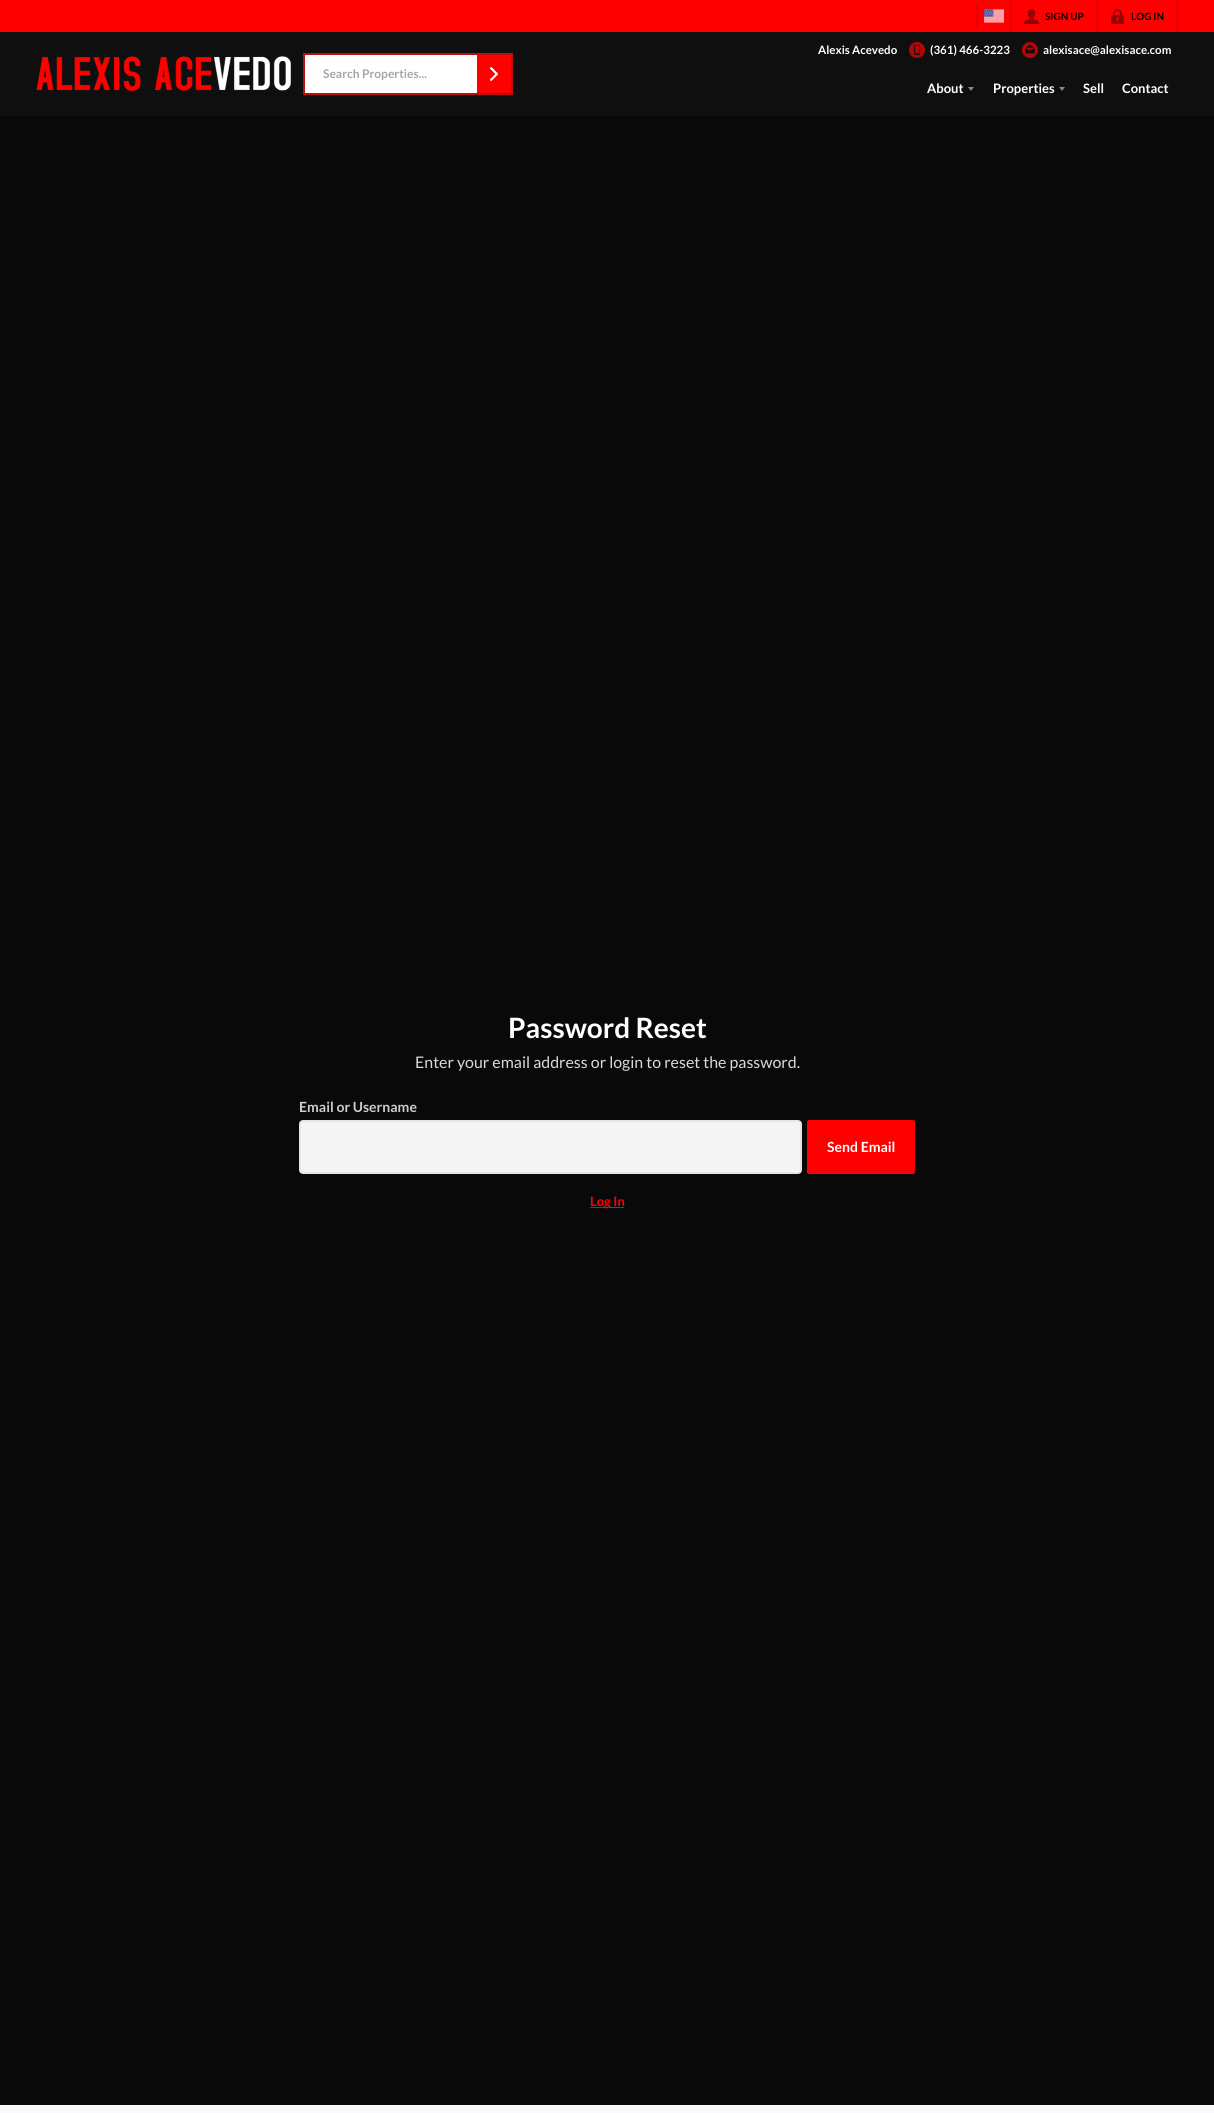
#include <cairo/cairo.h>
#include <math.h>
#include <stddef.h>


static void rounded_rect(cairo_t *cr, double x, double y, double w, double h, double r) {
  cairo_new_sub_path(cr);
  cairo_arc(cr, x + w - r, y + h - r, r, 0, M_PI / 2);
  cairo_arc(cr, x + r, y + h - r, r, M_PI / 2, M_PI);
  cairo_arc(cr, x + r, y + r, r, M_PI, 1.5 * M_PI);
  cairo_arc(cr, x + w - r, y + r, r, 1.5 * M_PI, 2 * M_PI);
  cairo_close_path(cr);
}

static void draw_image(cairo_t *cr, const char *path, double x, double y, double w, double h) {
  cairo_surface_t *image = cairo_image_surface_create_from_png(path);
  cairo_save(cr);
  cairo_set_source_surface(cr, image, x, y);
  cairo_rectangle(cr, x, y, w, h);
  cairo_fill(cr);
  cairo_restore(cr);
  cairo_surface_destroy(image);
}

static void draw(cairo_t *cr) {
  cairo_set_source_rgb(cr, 15 / 255.0, 15 / 255.0, 15 / 255.0);
  cairo_paint(cr);
  cairo_set_source_rgb(cr, 1, 0, 0);
  cairo_rectangle(cr, 0, 0, 1214, 32);
  cairo_fill(cr);
  cairo_set_source_rgb(cr, 230 / 255.0, 0, 0);
  cairo_rectangle(cr, 976, 2, 2, 28);
  cairo_fill(cr);
  draw_image(cr, "images/1.png", 984, 9, 20, 14);
  cairo_rectangle(cr, 1176, 0, 2, 32);
  cairo_fill(cr);
  cairo_rectangle(cr, 1010, 0, 2, 32);
  cairo_fill(cr);
  draw_image(cr, "images/2.png", 1024, 9, 15, 15);
  cairo_rectangle(cr, 1096, 0, 2, 32);
  cairo_fill(cr);
  draw_image(cr, "images/3.png", 1111, 9, 13, 15);
  draw_image(cr, "images/4.png", 36, 56, 255, 35);
  cairo_rectangle(cr, 304, 54, 208, 40);
  cairo_set_source_rgb(cr, 191 / 255.0, 12 / 255.0, 12 / 255.0);
  cairo_stroke(cr);
  cairo_set_source_rgb(cr, 1, 1, 1);
  cairo_rectangle(cr, 305, 55, 172, 38);
  cairo_fill(cr);
  cairo_set_source_rgb(cr, 1, 0, 0);
  cairo_rectangle(cr, 477, 55, 34, 38);
  cairo_fill(cr);
  draw_image(cr, "images/5.png", 489, 67, 9, 14);
  draw_image(cr, "images/6.png", 909, 42, 16, 16);
  draw_image(cr, "images/7.png", 1022, 42, 16, 16);
  cairo_set_source_rgb(cr, 135 / 255.0, 135 / 255.0, 135 / 255.0);
  cairo_new_path(cr);
  cairo_move_to(cr, 968, 87);
  cairo_line_to(cr, 974, 87);
  cairo_line_to(cr, 971, 91);
  cairo_close_path(cr);
  cairo_fill(cr);
  cairo_new_path(cr);
  cairo_move_to(cr, 1059, 87);
  cairo_line_to(cr, 1065, 87);
  cairo_line_to(cr, 1062, 91);
  cairo_close_path(cr);
  cairo_fill(cr);
  cairo_set_source_rgb(cr, 9 / 255.0, 9 / 255.0, 9 / 255.0);
  cairo_rectangle(cr, 0, 116, 1214, 1989);
  cairo_fill(cr);
  cairo_set_source_rgb(cr, 245 / 255.0, 245 / 255.0, 245 / 255.0);
  rounded_rect(cr, 300, 1121, 501, 52, 3);
  cairo_fill_preserve(cr);
  cairo_set_source_rgb(cr, 229 / 255.0, 229 / 255.0, 229 / 255.0);
  cairo_stroke(cr);
  cairo_set_source_rgb(cr, 1, 0, 0);
  rounded_rect(cr, 808, 1121, 106, 52, 1);
  cairo_fill_preserve(cr);
  cairo_stroke(cr);
  cairo_rectangle(cr, 590, 1207, 34, 1);
  cairo_fill(cr);
  cairo_set_source_rgb(cr, 250 / 255.0, 250 / 255.0, 252 / 255.0);
  cairo_rectangle(cr, 0, 2105, 1214, 8);
  cairo_fill(cr);
  cairo_select_font_face(cr, "Lato", CAIRO_FONT_SLANT_NORMAL, CAIRO_FONT_WEIGHT_BOLD);
  cairo_set_font_size(cr, 10);
  cairo_set_source_rgb(cr, 0, 0, 0);
  cairo_move_to(cr, 1045, 20);
  cairo_show_text(cr, "SIGN UP");
  cairo_move_to(cr, 1131, 20);
  cairo_show_text(cr, "LOG IN");
  cairo_set_font_size(cr, 12);
  cairo_set_source_rgb(cr, 165 / 255.0, 165 / 255.0, 165 / 255.0);
  cairo_move_to(cr, 323, 78);
  cairo_show_text(cr, "Search Properties...");
  cairo_set_font_size(cr, 11.5);
  cairo_set_source_rgb(cr, 1, 1, 1);
  cairo_move_to(cr, 818, 54);
  cairo_show_text(cr, "Alexis Acevedo");
  cairo_move_to(cr, 930, 54);
  cairo_show_text(cr, "(361) 466-3223");
  cairo_move_to(cr, 1043, 54);
  cairo_show_text(cr, "alexisace@alexisace.com");
  cairo_set_font_size(cr, 13);
  cairo_move_to(cr, 927, 93);
  cairo_show_text(cr, "About");
  cairo_move_to(cr, 993, 93);
  cairo_show_text(cr, "Properties");
  cairo_move_to(cr, 1083, 93);
  cairo_show_text(cr, "Sell");
  cairo_move_to(cr, 1122, 93);
  cairo_show_text(cr, "Contact");
  cairo_set_font_size(cr, 28);
  cairo_move_to(cr, 508, 1038);
  cairo_show_text(cr, "Password Reset");
  cairo_select_font_face(cr, "Lato", CAIRO_FONT_SLANT_NORMAL, CAIRO_FONT_WEIGHT_NORMAL);
  cairo_set_font_size(cr, 15.95);
  cairo_set_source_rgb(cr, 218 / 255.0, 218 / 255.0, 218 / 255.0);
  cairo_move_to(cr, 415, 1068);
  cairo_show_text(cr, "Enter your email address or login to reset the password.");
  cairo_select_font_face(cr, "Lato", CAIRO_FONT_SLANT_NORMAL, CAIRO_FONT_WEIGHT_BOLD);
  cairo_set_font_size(cr, 14);
  cairo_set_source_rgb(cr, 206 / 255.0, 206 / 255.0, 206 / 255.0);
  cairo_move_to(cr, 299, 1112);
  cairo_show_text(cr, "Email or Username");
  cairo_set_source_rgb(cr, 1, 1, 1);
  cairo_move_to(cr, 827, 1152);
  cairo_show_text(cr, "Send Email");
  cairo_set_font_size(cr, 13);
  cairo_set_source_rgb(cr, 1, 0, 0);
  cairo_move_to(cr, 590, 1206);
  cairo_show_text(cr, "Log In");
}

int main(void) {
  cairo_surface_t *surface = cairo_image_surface_create(CAIRO_FORMAT_RGB24, 1214, 2113);
  cairo_t *cr = cairo_create(surface);
  cairo_font_options_t *options = cairo_font_options_create();
  cairo_font_options_set_hint_metrics(options, CAIRO_HINT_METRICS_OFF);
  cairo_font_options_set_hint_style(options, CAIRO_HINT_STYLE_NONE);
  cairo_set_font_options(cr, options);
  cairo_set_miter_limit(cr, 4);
  draw(cr);
  cairo_surface_write_to_png(surface, "out.png");
  cairo_font_options_destroy(options);
  cairo_destroy(cr);
  cairo_surface_destroy(surface);
  return 0;
}
